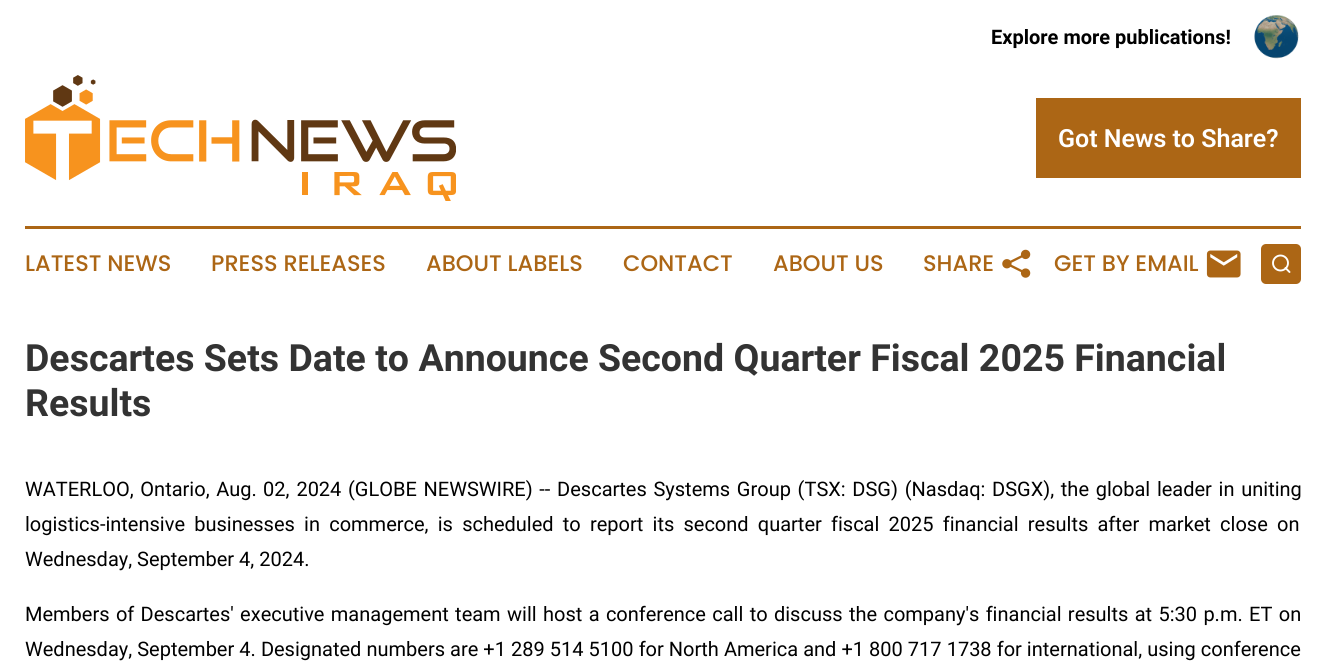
#include <cairo/cairo.h>
#include <math.h>
#include <stddef.h>


static void draw_spaced(cairo_t *cr, double x, double y, const char *s, double letter, double word) {
  cairo_move_to(cr, x, y);
  while (*s) {
    char ch[5] = {0};
    int n = 0;
    do ch[n++] = *s++; while ((*s & 0xC0) == 0x80);
    cairo_show_text(cr, ch);
    cairo_rel_move_to(cr, letter + word * (*ch == ' '), 0);
  }
}

static void rounded_rect(cairo_t *cr, double x, double y, double w, double h, double r) {
  cairo_new_sub_path(cr);
  cairo_arc(cr, x + w - r, y + h - r, r, 0, M_PI / 2);
  cairo_arc(cr, x + r, y + h - r, r, M_PI / 2, M_PI);
  cairo_arc(cr, x + r, y + r, r, M_PI, 1.5 * M_PI);
  cairo_arc(cr, x + w - r, y + r, r, 1.5 * M_PI, 2 * M_PI);
  cairo_close_path(cr);
}

static void draw_image(cairo_t *cr, const char *path, double x, double y, double w, double h) {
  cairo_surface_t *image = cairo_image_surface_create_from_png(path);
  cairo_save(cr);
  cairo_set_source_surface(cr, image, x, y);
  cairo_rectangle(cr, x, y, w, h);
  cairo_fill(cr);
  cairo_restore(cr);
  cairo_surface_destroy(image);
}

static void draw(cairo_t *cr) {
  cairo_set_source_rgb(cr, 1, 1, 1);
  cairo_paint(cr);
  draw_image(cr, "images/1.png", 1254, 15, 45, 44);
  draw_image(cr, "images/2.png", 25, 75, 431, 126);
  cairo_set_source_rgb(cr, 172 / 255.0, 102 / 255.0, 21 / 255.0);
  cairo_rectangle(cr, 1036, 98, 265, 80);
  cairo_fill(cr);
  cairo_rectangle(cr, 25, 226, 1276, 3);
  cairo_fill(cr);
  draw_image(cr, "images/3.png", 1002, 249, 29, 29);
  draw_image(cr, "images/4.png", 1206, 250, 35, 28);
  rounded_rect(cr, 1261, 244, 40, 40, 5);
  cairo_fill(cr);
  cairo_arc(cr, 1280.5, 263, 7.5, 0, 2 * M_PI);
  cairo_set_source_rgb(cr, 1, 1, 1);
  cairo_set_line_width(cr, 1.9);
  cairo_stroke(cr);
  cairo_new_path(cr);
  cairo_move_to(cr, 1289.5, 272);
  cairo_line_to(cr, 1285.5, 268);
  cairo_set_line_cap(cr, CAIRO_LINE_CAP_ROUND);
  cairo_set_line_join(cr, CAIRO_LINE_JOIN_ROUND);
  cairo_stroke(cr);
  cairo_select_font_face(cr, "Roboto", CAIRO_FONT_SLANT_NORMAL, CAIRO_FONT_WEIGHT_BOLD);
  cairo_set_font_size(cr, 20);
  cairo_set_source_rgb(cr, 0, 0, 0);
  cairo_move_to(cr, 991, 44);
  cairo_show_text(cr, "Explore more publications!");
  cairo_select_font_face(cr, "Roboto SemiBold", CAIRO_FONT_SLANT_NORMAL, CAIRO_FONT_WEIGHT_NORMAL);
  cairo_set_font_size(cr, 25);
  cairo_set_source_rgb(cr, 1, 1, 1);
  cairo_move_to(cr, 1058, 147);
  cairo_show_text(cr, "Got News to Share?");
  cairo_select_font_face(cr, "Poppins Medium", CAIRO_FONT_SLANT_NORMAL, CAIRO_FONT_WEIGHT_NORMAL);
  cairo_set_font_size(cr, 22.5);
  cairo_set_source_rgb(cr, 172 / 255.0, 102 / 255.0, 21 / 255.0);
  cairo_move_to(cr, 25, 271);
  cairo_show_text(cr, "LATEST NEWS");
  cairo_move_to(cr, 211, 271);
  cairo_show_text(cr, "PRESS RELEASES");
  cairo_move_to(cr, 426, 271);
  cairo_show_text(cr, "ABOUT LABELS");
  cairo_move_to(cr, 623, 271);
  cairo_show_text(cr, "CONTACT");
  cairo_move_to(cr, 773, 271);
  cairo_show_text(cr, "ABOUT US");
  cairo_move_to(cr, 923, 271);
  cairo_show_text(cr, "SHARE");
  cairo_move_to(cr, 1054, 271);
  cairo_show_text(cr, "GET BY EMAIL");
  cairo_select_font_face(cr, "Roboto", CAIRO_FONT_SLANT_NORMAL, CAIRO_FONT_WEIGHT_BOLD);
  cairo_set_font_size(cr, 37.5);
  cairo_set_source_rgb(cr, 51 / 255.0, 51 / 255.0, 51 / 255.0);
  cairo_move_to(cr, 25, 371);
  cairo_show_text(cr, "Descartes Sets Date to Announce Second Quarter Fiscal 2025 Financial");
  cairo_move_to(cr, 25, 416);
  cairo_show_text(cr, "Results");
  cairo_select_font_face(cr, "Roboto", CAIRO_FONT_SLANT_NORMAL, CAIRO_FONT_WEIGHT_NORMAL);
  cairo_set_font_size(cr, 20);
  cairo_set_source_rgb(cr, 0, 0, 0);
  draw_spaced(cr, 25, 496, "WATERLOO, Ontario, Aug.", 0, 1.75);
  draw_spaced(cr, 263, 496, "02, 2024", 0, 2);
  draw_spaced(cr, 348, 496, "(GLOBE NEWSWIRE) -- Descartes Systems Group (TSX: DSG) (Nasdaq: DSGX), the global leader in uniting", 0, 1.75);
  draw_spaced(cr, 25, 531, "logistics-intensive businesses in commerce, is scheduled to report its second quarter fiscal 2025 financial results after market close on", 0, 4.25);
  cairo_move_to(cr, 25, 566);
  cairo_show_text(cr, "Wednesday, September 4, 2024.");
  draw_spaced(cr, 25, 621, "Members of Descartes' executive management team will host a conference call to discuss the company's financial results at 5:30 p.m. ET on", 0, 1.4);
  draw_spaced(cr, 25, 656, "Wednesday, September 4. Designated numbers are +1 289 514 5100 for North America and +1 800 717 1738 for international, using conference", 0, 0.1);
}

int main(void) {
  cairo_surface_t *surface = cairo_image_surface_create(CAIRO_FORMAT_RGB24, 1326, 672);
  cairo_t *cr = cairo_create(surface);
  cairo_font_options_t *options = cairo_font_options_create();
  cairo_font_options_set_hint_metrics(options, CAIRO_HINT_METRICS_OFF);
  cairo_font_options_set_hint_style(options, CAIRO_HINT_STYLE_NONE);
  cairo_set_font_options(cr, options);
  cairo_set_miter_limit(cr, 4);
  draw(cr);
  cairo_surface_write_to_png(surface, "out.png");
  cairo_font_options_destroy(options);
  cairo_destroy(cr);
  cairo_surface_destroy(surface);
  return 0;
}
